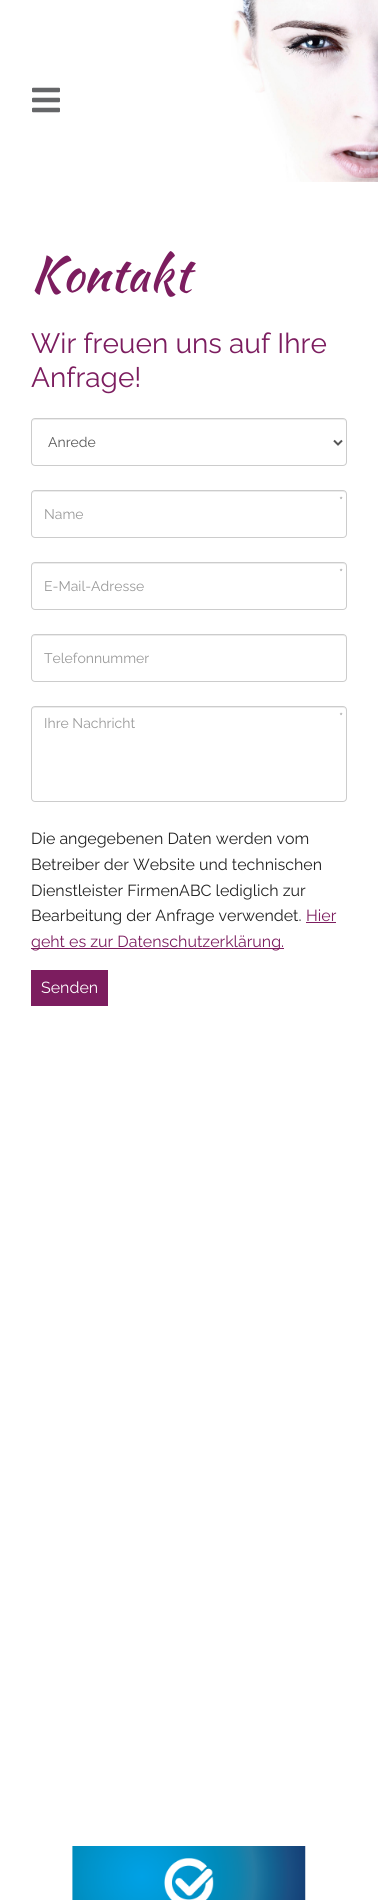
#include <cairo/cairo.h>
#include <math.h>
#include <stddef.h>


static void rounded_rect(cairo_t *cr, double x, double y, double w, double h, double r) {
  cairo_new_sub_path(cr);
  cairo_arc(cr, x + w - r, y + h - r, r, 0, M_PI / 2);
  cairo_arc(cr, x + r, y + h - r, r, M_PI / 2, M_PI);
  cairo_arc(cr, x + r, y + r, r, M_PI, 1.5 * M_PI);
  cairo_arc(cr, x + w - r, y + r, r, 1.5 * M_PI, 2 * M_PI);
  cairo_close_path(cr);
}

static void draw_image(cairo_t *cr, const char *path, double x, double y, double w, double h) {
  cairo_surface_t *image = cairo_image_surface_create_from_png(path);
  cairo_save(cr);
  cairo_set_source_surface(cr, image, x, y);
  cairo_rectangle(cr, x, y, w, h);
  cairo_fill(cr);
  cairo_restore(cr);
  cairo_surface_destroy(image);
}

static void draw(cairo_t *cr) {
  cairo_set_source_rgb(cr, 1, 1, 1);
  cairo_paint(cr);
  draw_image(cr, "images/1.png", 231, 0, 147, 182);
  draw_image(cr, "images/2.png", 32, 87, 28, 26);
  cairo_set_source_rgb(cr, 236 / 255.0, 236 / 255.0, 236 / 255.0);
  cairo_new_path(cr);
  cairo_move_to(cr, 35, 420);
  cairo_line_to(cr, 343, 420);
  cairo_curve_to(cr, 345, 420, 346, 421, 346, 423);
  cairo_line_to(cr, 345, 420);
  cairo_line_to(cr, 344, 419);
  cairo_line_to(cr, 35, 419);
  cairo_curve_to(cr, 33, 419, 32, 421, 32, 423);
  cairo_curve_to(cr, 32, 421, 33, 420, 35, 420);
  cairo_close_path(cr);
  cairo_fill(cr);
  rounded_rect(cr, 31.5, 418.5, 315, 47, 3.5);
  cairo_set_source_rgb(cr, 204 / 255.0, 204 / 255.0, 204 / 255.0);
  cairo_set_line_width(cr, 1);
  cairo_stroke(cr);
  cairo_new_path(cr);
  cairo_move_to(cr, 334, 440.5);
  cairo_line_to(cr, 338, 444.5);
  cairo_line_to(cr, 342, 440.5);
  cairo_set_source_rgb(cr, 85 / 255.0, 85 / 255.0, 85 / 255.0);
  cairo_set_line_width(cr, 2);
  cairo_stroke(cr);
  cairo_set_source_rgb(cr, 236 / 255.0, 236 / 255.0, 236 / 255.0);
  cairo_new_path(cr);
  cairo_move_to(cr, 35, 492);
  cairo_line_to(cr, 343, 492);
  cairo_curve_to(cr, 345, 492, 346, 493, 346, 495);
  cairo_line_to(cr, 345, 492);
  cairo_line_to(cr, 344, 491);
  cairo_line_to(cr, 35, 491);
  cairo_curve_to(cr, 33, 491, 32, 493, 32, 495);
  cairo_curve_to(cr, 32, 493, 33, 492, 35, 492);
  cairo_close_path(cr);
  cairo_fill(cr);
  rounded_rect(cr, 31.5, 490.5, 315, 47, 3.5);
  cairo_set_source_rgb(cr, 204 / 255.0, 204 / 255.0, 204 / 255.0);
  cairo_set_line_width(cr, 1);
  cairo_stroke(cr);
  cairo_set_source_rgb(cr, 236 / 255.0, 236 / 255.0, 236 / 255.0);
  cairo_new_path(cr);
  cairo_move_to(cr, 35, 564);
  cairo_line_to(cr, 343, 564);
  cairo_curve_to(cr, 345, 564, 346, 565, 346, 567);
  cairo_line_to(cr, 345, 564);
  cairo_line_to(cr, 344, 563);
  cairo_line_to(cr, 35, 563);
  cairo_curve_to(cr, 33, 563, 32, 565, 32, 567);
  cairo_curve_to(cr, 32, 565, 33, 564, 35, 564);
  cairo_close_path(cr);
  cairo_fill(cr);
  rounded_rect(cr, 31.5, 562.5, 315, 47, 3.5);
  cairo_set_source_rgb(cr, 204 / 255.0, 204 / 255.0, 204 / 255.0);
  cairo_stroke(cr);
  cairo_set_source_rgb(cr, 236 / 255.0, 236 / 255.0, 236 / 255.0);
  cairo_new_path(cr);
  cairo_move_to(cr, 35, 636);
  cairo_line_to(cr, 343, 636);
  cairo_curve_to(cr, 345, 636, 346, 637, 346, 639);
  cairo_line_to(cr, 345, 636);
  cairo_line_to(cr, 344, 635);
  cairo_line_to(cr, 35, 635);
  cairo_curve_to(cr, 33, 635, 32, 637, 32, 639);
  cairo_curve_to(cr, 32, 637, 33, 636, 35, 636);
  cairo_close_path(cr);
  cairo_fill(cr);
  rounded_rect(cr, 31.5, 634.5, 315, 47, 3.5);
  cairo_set_source_rgb(cr, 204 / 255.0, 204 / 255.0, 204 / 255.0);
  cairo_stroke(cr);
  cairo_set_source_rgb(cr, 236 / 255.0, 236 / 255.0, 236 / 255.0);
  cairo_new_path(cr);
  cairo_move_to(cr, 35, 708);
  cairo_line_to(cr, 343, 708);
  cairo_curve_to(cr, 345, 708, 346, 709, 346, 711);
  cairo_line_to(cr, 345, 708);
  cairo_line_to(cr, 344, 707);
  cairo_line_to(cr, 35, 707);
  cairo_curve_to(cr, 33, 707, 32, 709, 32, 711);
  cairo_curve_to(cr, 32, 709, 33, 708, 35, 708);
  cairo_close_path(cr);
  cairo_fill(cr);
  rounded_rect(cr, 31.5, 706.5, 315, 95, 3.5);
  cairo_set_source_rgb(cr, 204 / 255.0, 204 / 255.0, 204 / 255.0);
  cairo_stroke(cr);
  cairo_set_source_rgb(cr, 124 / 255.0, 29 / 255.0, 95 / 255.0);
  cairo_rectangle(cr, 306, 922, 30, 1);
  cairo_fill(cr);
  cairo_rectangle(cr, 31, 948, 253, 1);
  cairo_fill(cr);
  cairo_rectangle(cr, 31, 970, 77, 36);
  cairo_fill(cr);
  draw_image(cr, "images/3.png", 72, 1846, 234, 54);
  cairo_select_font_face(cr, "Kaushan Script", CAIRO_FONT_SLANT_NORMAL, CAIRO_FONT_WEIGHT_NORMAL);
  cairo_set_font_size(cr, 48);
  cairo_move_to(cr, 31, 291);
  cairo_show_text(cr, "Kontakt");
  cairo_select_font_face(cr, "Raleway Thin", CAIRO_FONT_SLANT_NORMAL, CAIRO_FONT_WEIGHT_NORMAL);
  cairo_set_font_size(cr, 28);
  cairo_move_to(cr, 31, 353);
  cairo_show_text(cr, "Wir freuen uns auf Ihre");
  cairo_move_to(cr, 31, 387);
  cairo_show_text(cr, "Anfrage!");
  cairo_set_font_size(cr, 14);
  cairo_set_source_rgb(cr, 85 / 255.0, 85 / 255.0, 85 / 255.0);
  cairo_move_to(cr, 48, 447);
  cairo_show_text(cr, "Anrede");
  cairo_set_font_size(cr, 13);
  cairo_set_source_rgb(cr, 153 / 255.0, 153 / 255.0, 153 / 255.0);
  cairo_move_to(cr, 339, 506);
  cairo_show_text(cr, "*");
  cairo_set_font_size(cr, 14);
  cairo_move_to(cr, 44, 519);
  cairo_show_text(cr, "Name");
  cairo_set_font_size(cr, 13);
  cairo_move_to(cr, 339, 578);
  cairo_show_text(cr, "*");
  cairo_set_font_size(cr, 14);
  cairo_move_to(cr, 44, 591);
  cairo_show_text(cr, "E-Mail-Adresse");
  cairo_move_to(cr, 44, 663);
  cairo_show_text(cr, "Telefonnummer");
  cairo_set_font_size(cr, 13);
  cairo_move_to(cr, 339, 722);
  cairo_show_text(cr, "*");
  cairo_set_font_size(cr, 14);
  cairo_move_to(cr, 44, 728);
  cairo_show_text(cr, "Ihre Nachricht");
  cairo_set_font_size(cr, 16);
  cairo_set_source_rgb(cr, 34 / 255.0, 34 / 255.0, 34 / 255.0);
  cairo_move_to(cr, 31, 844);
  cairo_show_text(cr, "Die angegebenen Daten werden vom");
  cairo_move_to(cr, 31, 870);
  cairo_show_text(cr, "Betreiber der Website und technischen");
  cairo_move_to(cr, 31, 896);
  cairo_show_text(cr, "Dienstleister FirmenABC lediglich zur");
  cairo_move_to(cr, 31, 921);
  cairo_show_text(cr, "Bearbeitung der Anfrage verwendet.");
  cairo_set_source_rgb(cr, 124 / 255.0, 29 / 255.0, 95 / 255.0);
  cairo_move_to(cr, 306, 921);
  cairo_show_text(cr, "Hier");
  cairo_move_to(cr, 31, 947);
  cairo_show_text(cr, "geht es zur Datenschutzerklärung.");
  cairo_set_source_rgb(cr, 1, 1, 1);
  cairo_move_to(cr, 41, 993);
  cairo_show_text(cr, "Senden");
}

int main(void) {
  cairo_surface_t *surface = cairo_image_surface_create(CAIRO_FORMAT_RGB24, 378, 1900);
  cairo_t *cr = cairo_create(surface);
  cairo_font_options_t *options = cairo_font_options_create();
  cairo_font_options_set_hint_metrics(options, CAIRO_HINT_METRICS_OFF);
  cairo_font_options_set_hint_style(options, CAIRO_HINT_STYLE_NONE);
  cairo_set_font_options(cr, options);
  cairo_set_miter_limit(cr, 4);
  draw(cr);
  cairo_surface_write_to_png(surface, "out.png");
  cairo_font_options_destroy(options);
  cairo_destroy(cr);
  cairo_surface_destroy(surface);
  return 0;
}
